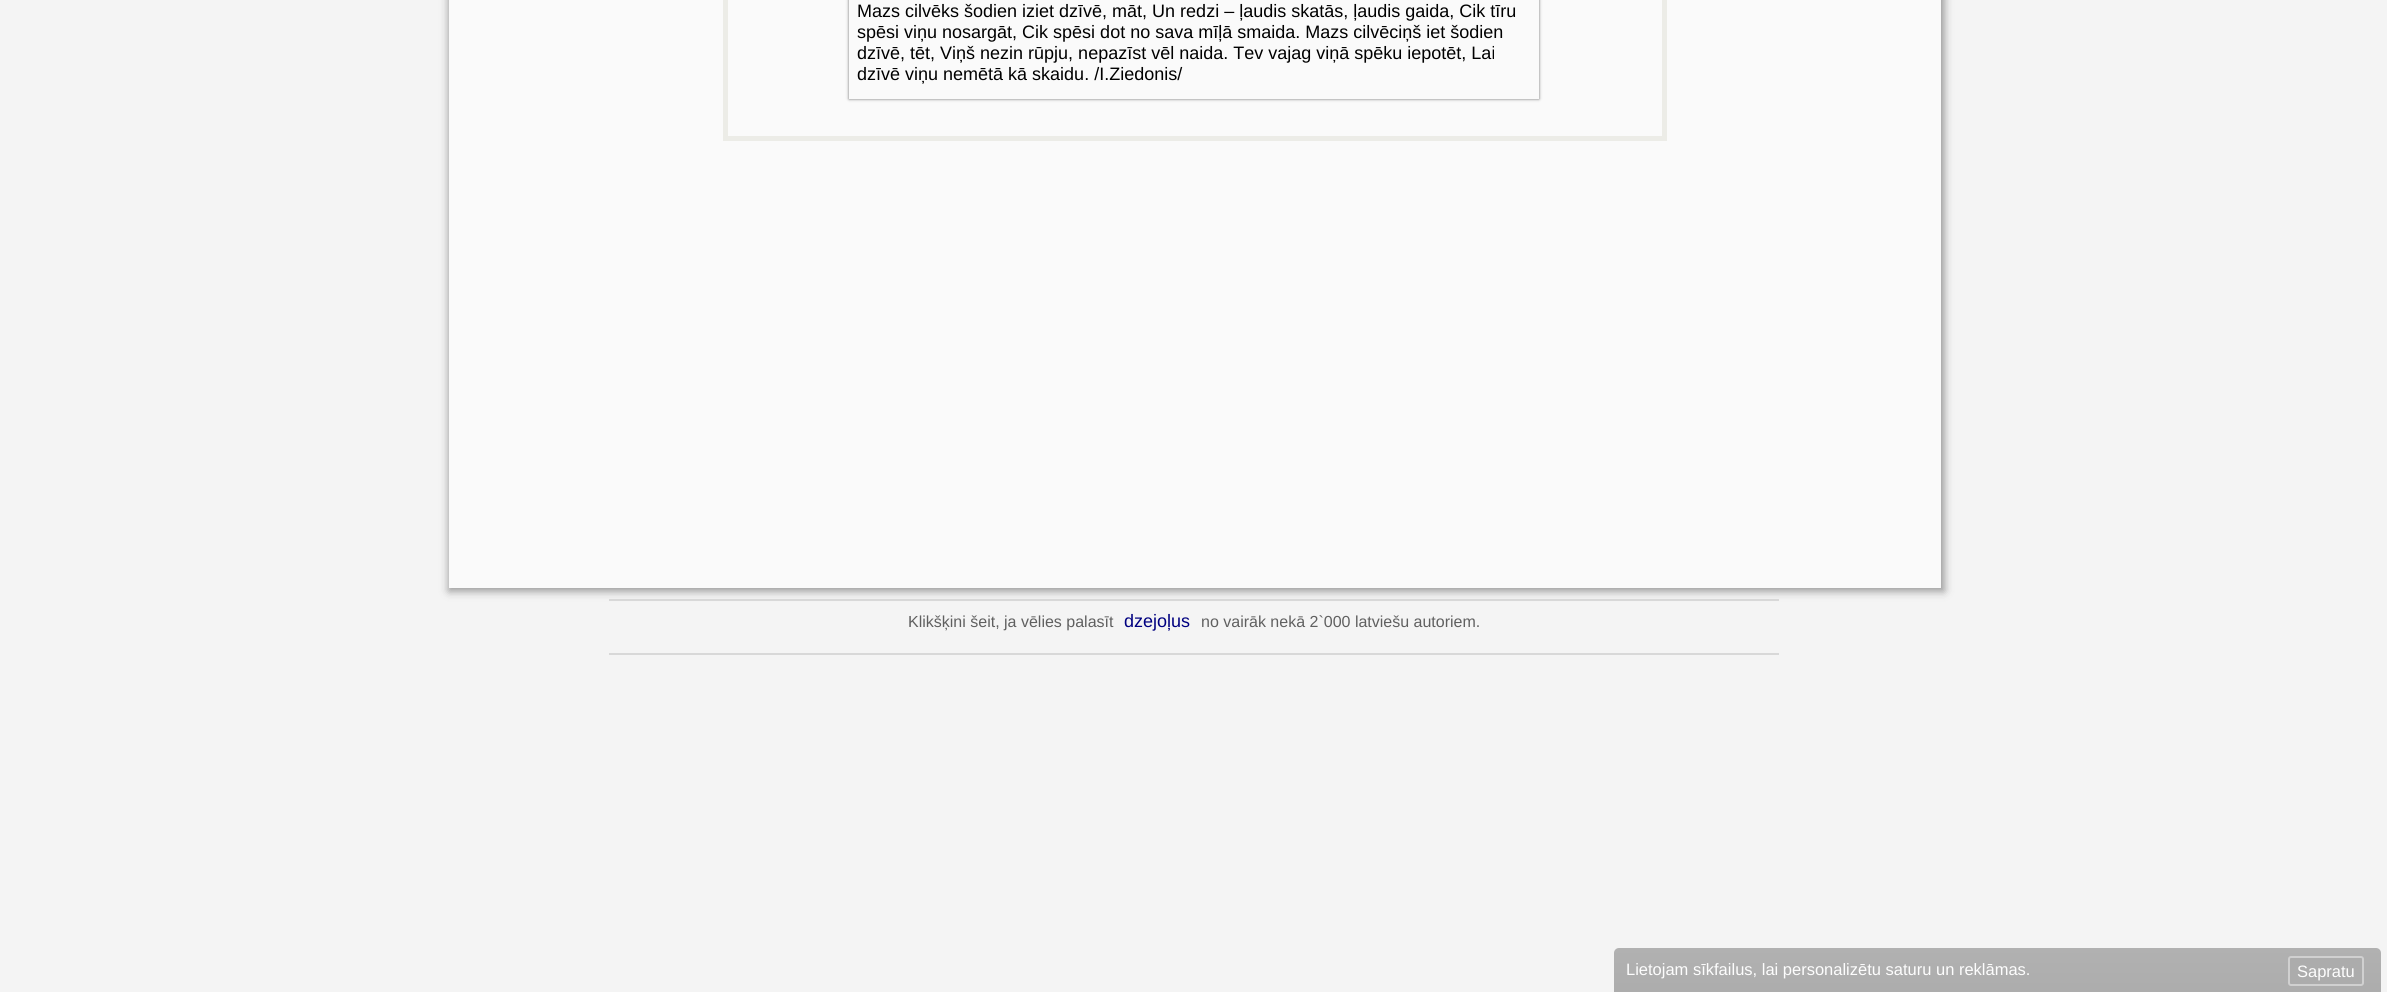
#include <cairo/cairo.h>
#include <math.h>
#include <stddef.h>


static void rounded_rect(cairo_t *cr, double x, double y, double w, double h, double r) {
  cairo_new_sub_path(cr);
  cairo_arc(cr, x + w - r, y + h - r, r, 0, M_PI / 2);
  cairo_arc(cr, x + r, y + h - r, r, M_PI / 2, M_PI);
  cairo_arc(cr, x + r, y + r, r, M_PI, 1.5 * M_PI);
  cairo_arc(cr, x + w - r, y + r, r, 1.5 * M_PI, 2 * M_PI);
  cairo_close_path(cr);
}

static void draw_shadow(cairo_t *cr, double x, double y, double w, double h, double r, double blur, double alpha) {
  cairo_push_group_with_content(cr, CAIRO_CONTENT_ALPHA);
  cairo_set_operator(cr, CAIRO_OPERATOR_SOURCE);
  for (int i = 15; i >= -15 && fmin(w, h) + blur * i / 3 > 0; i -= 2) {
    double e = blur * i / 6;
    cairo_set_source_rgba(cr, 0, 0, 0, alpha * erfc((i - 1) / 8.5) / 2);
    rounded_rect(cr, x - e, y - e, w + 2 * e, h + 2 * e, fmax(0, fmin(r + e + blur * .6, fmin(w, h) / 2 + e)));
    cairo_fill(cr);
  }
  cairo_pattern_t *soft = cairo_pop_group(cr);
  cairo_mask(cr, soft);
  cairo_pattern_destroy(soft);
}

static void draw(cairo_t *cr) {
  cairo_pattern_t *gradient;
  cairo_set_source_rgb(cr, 244 / 255.0, 244 / 255.0, 244 / 255.0);
  cairo_paint(cr);
  cairo_set_source_rgb(cr, 50 / 255.0, 50 / 255.0, 50 / 255.0);
  draw_shadow(cr, 449, -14, 1495, 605, 0, 4.5, 0.5);
  cairo_set_source_rgb(cr, 250 / 255.0, 250 / 255.0, 250 / 255.0);
  cairo_rectangle(cr, 449, 0, 1492, 588);
  cairo_fill(cr);
  cairo_rectangle(cr, 725.5, -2.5, 939, 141);
  cairo_set_source_rgb(cr, 236 / 255.0, 236 / 255.0, 231 / 255.0);
  cairo_set_line_width(cr, 5);
  cairo_stroke(cr);
  cairo_save(cr);
  cairo_set_fill_rule(cr, CAIRO_FILL_RULE_EVEN_ODD);
  cairo_new_path(cr);
  cairo_move_to(cr, 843, 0);
  cairo_line_to(cr, 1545, 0);
  cairo_line_to(cr, 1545, 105);
  cairo_line_to(cr, 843, 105);
  cairo_close_path(cr);
  cairo_move_to(cr, 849, -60);
  cairo_line_to(cr, 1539, -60);
  cairo_line_to(cr, 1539, 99);
  cairo_line_to(cr, 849, 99);
  cairo_close_path(cr);
  cairo_clip(cr);
  cairo_set_source_rgb(cr, 50 / 255.0, 50 / 255.0, 50 / 255.0);
  draw_shadow(cr, 849, -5, 690, 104, 0, 1.5, 0.7);
  cairo_restore(cr);
  cairo_set_source_rgb(cr, 216 / 255.0, 216 / 255.0, 216 / 255.0);
  cairo_rectangle(cr, 609, 599, 1170, 2);
  cairo_fill(cr);
  cairo_rectangle(cr, 609, 653, 1170, 2);
  cairo_fill(cr);
  gradient = cairo_pattern_create_linear(1997, 948, 1997, 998);
  cairo_pattern_add_color_stop_rgba(gradient, 0, 177 / 255.0, 177 / 255.0, 177 / 255.0, 1);
  cairo_pattern_add_color_stop_rgba(gradient, 1, 172 / 255.0, 172 / 255.0, 172 / 255.0, 1);
  cairo_set_source(cr, gradient);
  cairo_pattern_destroy(gradient);
  rounded_rect(cr, 1614, 948, 767, 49, 5);
  cairo_fill(cr);
  cairo_set_source_rgb(cr, 172 / 255.0, 172 / 255.0, 172 / 255.0);
  rounded_rect(cr, 2289, 957, 74, 28, 2);
  cairo_fill_preserve(cr);
  cairo_set_source_rgb(cr, 208 / 255.0, 208 / 255.0, 208 / 255.0);
  cairo_set_line_width(cr, 2);
  cairo_stroke(cr);
  cairo_select_font_face(cr, "Liberation Sans", CAIRO_FONT_SLANT_NORMAL, CAIRO_FONT_WEIGHT_NORMAL);
  cairo_set_font_size(cr, 18);
  cairo_set_source_rgb(cr, 0, 0, 0);
  cairo_move_to(cr, 857, 17);
  cairo_show_text(cr, "Mazs cilvēks šodien iziet dzīvē, māt, Un redzi – ļaudis skatās, ļaudis gaida, Cik tīru");
  cairo_move_to(cr, 857, 38);
  cairo_show_text(cr, "spēsi viņu nosargāt, Cik spēsi dot no sava mīļā smaida. Mazs cilvēciņš iet šodien");
  cairo_move_to(cr, 857, 59);
  cairo_show_text(cr, "dzīvē, tēt, Viņš nezin rūpju, nepazīst vēl naida. Tev vajag viņā spēku iepotēt, Lai");
  cairo_move_to(cr, 857, 80);
  cairo_show_text(cr, "dzīvē viņu nemētā kā skaidu. /I.Ziedonis/");
  cairo_set_font_size(cr, 16);
  cairo_set_source_rgb(cr, 96 / 255.0, 96 / 255.0, 96 / 255.0);
  cairo_move_to(cr, 908, 627);
  cairo_show_text(cr, "Klikšķini šeit, ja vēlies palasīt");
  cairo_set_font_size(cr, 18);
  cairo_set_source_rgb(cr, 0, 0, 128 / 255.0);
  cairo_move_to(cr, 1124, 627);
  cairo_show_text(cr, "dzejoļus");
  cairo_set_font_size(cr, 16);
  cairo_set_source_rgb(cr, 96 / 255.0, 96 / 255.0, 96 / 255.0);
  cairo_move_to(cr, 1201, 627);
  cairo_show_text(cr, "no vairāk nekā 2`000 latviešu autoriem.");
  cairo_set_font_size(cr, 16.5);
  cairo_set_source_rgb(cr, 253 / 255.0, 253 / 255.0, 253 / 255.0);
  cairo_move_to(cr, 1626, 975);
  cairo_show_text(cr, "Lietojam sīkfailus, lai personalizētu saturu un reklāmas.");
  cairo_move_to(cr, 2297, 977);
  cairo_show_text(cr, "Sapratu");
}

int main(void) {
  cairo_surface_t *surface = cairo_image_surface_create(CAIRO_FORMAT_RGB24, 2387, 992);
  cairo_t *cr = cairo_create(surface);
  cairo_font_options_t *options = cairo_font_options_create();
  cairo_font_options_set_hint_metrics(options, CAIRO_HINT_METRICS_OFF);
  cairo_font_options_set_hint_style(options, CAIRO_HINT_STYLE_NONE);
  cairo_set_font_options(cr, options);
  cairo_set_miter_limit(cr, 4);
  draw(cr);
  cairo_surface_write_to_png(surface, "out.png");
  cairo_font_options_destroy(options);
  cairo_destroy(cr);
  cairo_surface_destroy(surface);
  return 0;
}
